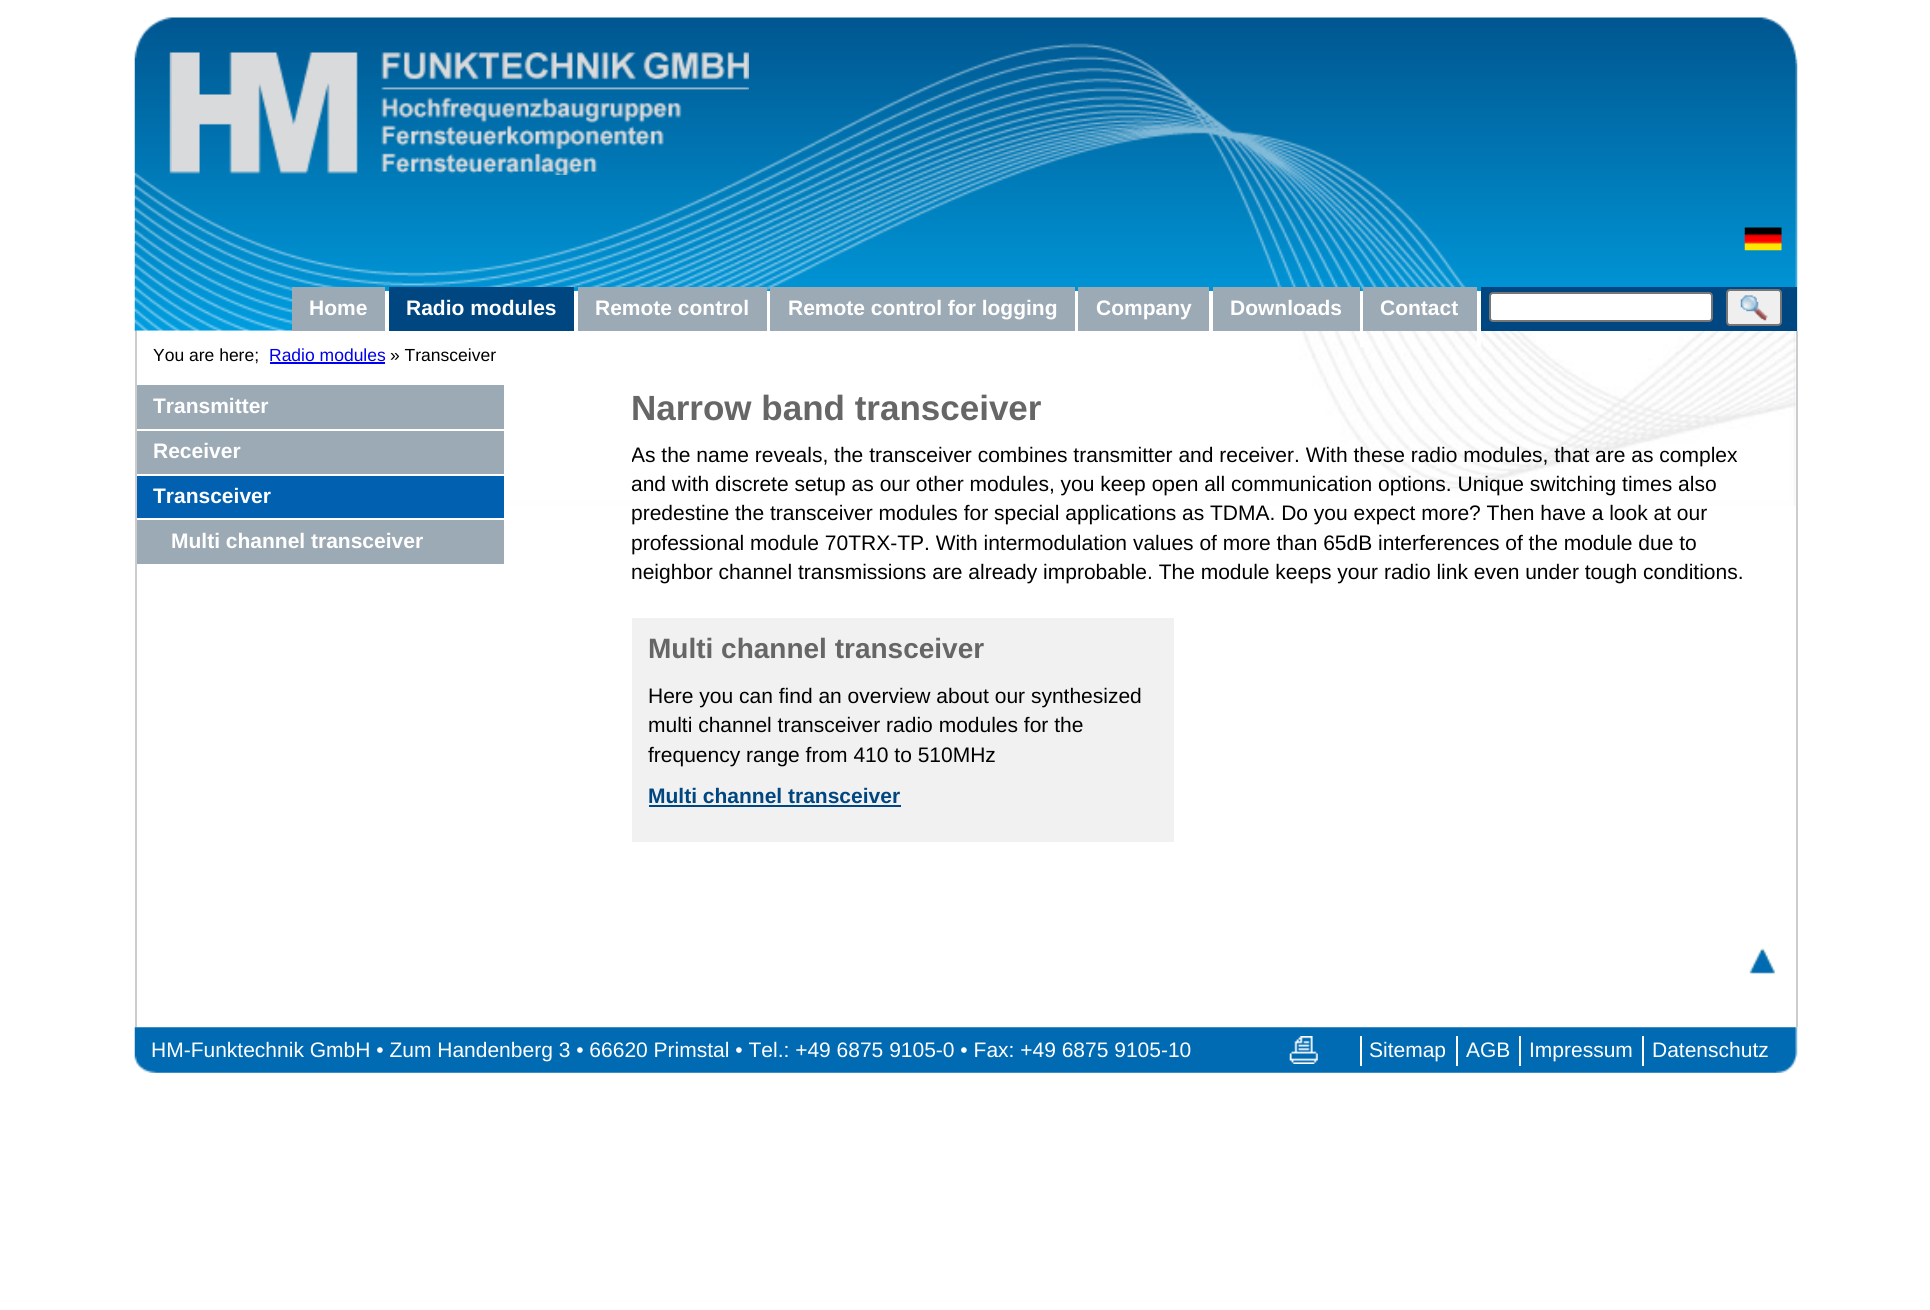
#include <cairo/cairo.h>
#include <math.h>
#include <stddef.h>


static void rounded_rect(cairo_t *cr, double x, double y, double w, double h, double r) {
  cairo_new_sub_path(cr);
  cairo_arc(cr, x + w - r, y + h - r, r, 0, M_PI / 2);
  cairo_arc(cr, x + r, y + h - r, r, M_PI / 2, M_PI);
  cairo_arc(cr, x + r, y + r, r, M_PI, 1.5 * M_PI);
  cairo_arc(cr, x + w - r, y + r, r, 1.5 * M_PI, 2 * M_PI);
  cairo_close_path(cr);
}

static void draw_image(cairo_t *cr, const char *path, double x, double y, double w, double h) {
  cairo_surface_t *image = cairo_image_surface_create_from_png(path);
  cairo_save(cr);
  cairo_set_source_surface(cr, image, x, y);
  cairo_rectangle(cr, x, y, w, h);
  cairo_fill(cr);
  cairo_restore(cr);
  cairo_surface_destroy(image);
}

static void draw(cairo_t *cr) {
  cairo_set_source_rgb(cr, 1, 1, 1);
  cairo_paint(cr);
  draw_image(cr, "images/1.png", 134, 17, 1664, 314);
  draw_image(cr, "images/2.png", 169, 52, 580, 123);
  draw_image(cr, "images/3.png", 1744, 227, 38, 24);
  draw_image(cr, "images/5.png", 136, 330, 1660, 176);
  cairo_set_source_rgb(cr, 156 / 255.0, 170 / 255.0, 181 / 255.0);
  cairo_rectangle(cr, 292, 287, 93, 44);
  cairo_fill(cr);
  cairo_set_source_rgb(cr, 1, 1, 1);
  cairo_rectangle(cr, 385, 291, 4, 40);
  cairo_fill(cr);
  cairo_set_source_rgb(cr, 0, 70 / 255.0, 128 / 255.0);
  cairo_rectangle(cr, 389, 287, 185, 44);
  cairo_fill(cr);
  cairo_set_source_rgb(cr, 1, 1, 1);
  cairo_rectangle(cr, 574, 291, 4, 40);
  cairo_fill(cr);
  cairo_set_source_rgb(cr, 156 / 255.0, 170 / 255.0, 181 / 255.0);
  cairo_rectangle(cr, 578, 287, 189, 44);
  cairo_fill(cr);
  cairo_set_source_rgb(cr, 1, 1, 1);
  cairo_rectangle(cr, 767, 291, 4, 40);
  cairo_fill(cr);
  cairo_set_source_rgb(cr, 156 / 255.0, 170 / 255.0, 181 / 255.0);
  cairo_rectangle(cr, 770, 287, 305, 44);
  cairo_fill(cr);
  cairo_set_source_rgb(cr, 1, 1, 1);
  cairo_rectangle(cr, 1075, 291, 4, 40);
  cairo_fill(cr);
  cairo_set_source_rgb(cr, 156 / 255.0, 170 / 255.0, 181 / 255.0);
  cairo_rectangle(cr, 1078, 287, 131, 44);
  cairo_fill(cr);
  cairo_set_source_rgb(cr, 1, 1, 1);
  cairo_rectangle(cr, 1209, 291, 4, 40);
  cairo_fill(cr);
  cairo_set_source_rgb(cr, 156 / 255.0, 170 / 255.0, 181 / 255.0);
  cairo_rectangle(cr, 1213, 287, 147, 44);
  cairo_fill(cr);
  cairo_set_source_rgb(cr, 1, 1, 1);
  cairo_rectangle(cr, 1360, 291, 4, 56);
  cairo_fill(cr);
  cairo_set_source_rgb(cr, 156 / 255.0, 170 / 255.0, 181 / 255.0);
  cairo_rectangle(cr, 1363, 287, 114, 44);
  cairo_fill(cr);
  cairo_set_source_rgb(cr, 1, 1, 1);
  cairo_rectangle(cr, 1477, 291, 4, 56);
  cairo_fill(cr);
  cairo_set_source_rgb(cr, 0, 70 / 255.0, 128 / 255.0);
  cairo_rectangle(cr, 1481, 287, 316, 44);
  cairo_fill(cr);
  cairo_set_source_rgb(cr, 1, 1, 1);
  rounded_rect(cr, 1490, 293, 222, 28, 3);
  cairo_fill_preserve(cr);
  cairo_set_source_rgb(cr, 118 / 255.0, 118 / 255.0, 118 / 255.0);
  cairo_stroke(cr);
  cairo_set_source_rgb(cr, 239 / 255.0, 239 / 255.0, 239 / 255.0);
  rounded_rect(cr, 1727, 290, 54, 35, 3);
  cairo_fill_preserve(cr);
  cairo_set_source_rgb(cr, 118 / 255.0, 118 / 255.0, 118 / 255.0);
  cairo_stroke(cr);
  draw_image(cr, "images/4.png", 1740, 295, 28, 26);
  cairo_set_source_rgb(cr, 204 / 255.0, 204 / 255.0, 204 / 255.0);
  cairo_rectangle(cr, 1796, 331, 2, 696);
  cairo_fill(cr);
  cairo_rectangle(cr, 135, 331, 2, 696);
  cairo_fill(cr);
  cairo_set_source_rgb(cr, 0, 0, 238 / 255.0);
  cairo_rectangle(cr, 270, 362, 115, 2);
  cairo_fill(cr);
  cairo_set_source_rgb(cr, 156 / 255.0, 170 / 255.0, 181 / 255.0);
  cairo_rectangle(cr, 137, 385, 367, 44);
  cairo_fill(cr);
  cairo_rectangle(cr, 137, 431, 367, 43);
  cairo_fill(cr);
  cairo_set_source_rgb(cr, 1 / 255.0, 96 / 255.0, 175 / 255.0);
  cairo_rectangle(cr, 137, 476, 367, 42);
  cairo_fill(cr);
  cairo_set_source_rgb(cr, 156 / 255.0, 170 / 255.0, 181 / 255.0);
  cairo_rectangle(cr, 137, 520, 367, 44);
  cairo_fill(cr);
  cairo_set_source_rgb(cr, 241 / 255.0, 241 / 255.0, 241 / 255.0);
  cairo_rectangle(cr, 632, 618, 542, 224);
  cairo_fill(cr);
  cairo_set_source_rgb(cr, 0, 70 / 255.0, 128 / 255.0);
  cairo_rectangle(cr, 649, 805, 252, 2);
  cairo_fill(cr);
  draw_image(cr, "images/6.png", 1749, 948, 26, 26);
  draw_image(cr, "images/7.png", 134, 1027, 1664, 46);
  draw_image(cr, "images/8.png", 1289, 1036, 29, 28);
  cairo_set_source_rgb(cr, 1, 1, 1);
  cairo_rectangle(cr, 1360, 1036, 2, 30);
  cairo_fill(cr);
  cairo_rectangle(cr, 1456, 1036, 2, 30);
  cairo_fill(cr);
  cairo_rectangle(cr, 1519, 1036, 2, 30);
  cairo_fill(cr);
  cairo_rectangle(cr, 1642, 1036, 2, 30);
  cairo_fill(cr);
  cairo_select_font_face(cr, "Liberation Sans", CAIRO_FONT_SLANT_NORMAL, CAIRO_FONT_WEIGHT_BOLD);
  cairo_set_font_size(cr, 21);
  cairo_move_to(cr, 309, 315);
  cairo_show_text(cr, "Home");
  cairo_move_to(cr, 406, 315);
  cairo_show_text(cr, "Radio modules");
  cairo_move_to(cr, 595, 315);
  cairo_show_text(cr, "Remote control");
  cairo_move_to(cr, 788, 315);
  cairo_show_text(cr, "Remote control for logging");
  cairo_move_to(cr, 1096, 315);
  cairo_show_text(cr, "Company");
  cairo_move_to(cr, 1230, 315);
  cairo_show_text(cr, "Downloads");
  cairo_move_to(cr, 1380, 315);
  cairo_show_text(cr, "Contact");
  cairo_select_font_face(cr, "Liberation Sans", CAIRO_FONT_SLANT_NORMAL, CAIRO_FONT_WEIGHT_NORMAL);
  cairo_set_font_size(cr, 17.5);
  cairo_set_source_rgb(cr, 0, 0, 0);
  cairo_move_to(cr, 153, 361);
  cairo_show_text(cr, "You are here;");
  cairo_set_source_rgb(cr, 0, 0, 238 / 255.0);
  cairo_move_to(cr, 269, 361);
  cairo_show_text(cr, "Radio modules");
  cairo_set_source_rgb(cr, 0, 0, 0);
  cairo_move_to(cr, 390, 361);
  cairo_show_text(cr, "» Transceiver");
  cairo_select_font_face(cr, "Liberation Sans", CAIRO_FONT_SLANT_NORMAL, CAIRO_FONT_WEIGHT_BOLD);
  cairo_set_font_size(cr, 21);
  cairo_set_source_rgb(cr, 1, 1, 1);
  cairo_move_to(cr, 153, 413);
  cairo_show_text(cr, "Transmitter");
  cairo_move_to(cr, 153, 458);
  cairo_show_text(cr, "Receiver");
  cairo_move_to(cr, 153, 503);
  cairo_show_text(cr, "Transceiver");
  cairo_move_to(cr, 171, 548);
  cairo_show_text(cr, "Multi channel transceiver");
  cairo_set_font_size(cr, 35);
  cairo_set_source_rgb(cr, 102 / 255.0, 102 / 255.0, 102 / 255.0);
  cairo_move_to(cr, 631, 420);
  cairo_show_text(cr, "Narrow band transceiver");
  cairo_save(cr);
  cairo_rectangle(cr, 632, 385, 1137, 613);
  cairo_clip(cr);
  cairo_select_font_face(cr, "Liberation Sans", CAIRO_FONT_SLANT_NORMAL, CAIRO_FONT_WEIGHT_NORMAL);
  cairo_set_font_size(cr, 21);
  cairo_set_source_rgb(cr, 0, 0, 0);
  cairo_move_to(cr, 631, 462);
  cairo_show_text(cr, "As the name reveals, the transceiver combines transmitter and receiver. With these radio modules, that are as complex");
  cairo_restore(cr);
  cairo_select_font_face(cr, "Liberation Sans", CAIRO_FONT_SLANT_NORMAL, CAIRO_FONT_WEIGHT_NORMAL);
  cairo_set_font_size(cr, 21);
  cairo_set_source_rgb(cr, 0, 0, 0);
  cairo_move_to(cr, 631, 491);
  cairo_show_text(cr, "and with discrete setup as our other modules, you keep open all communication options. Unique switching times also");
  cairo_move_to(cr, 631, 520);
  cairo_show_text(cr, "predestine the transceiver modules for special applications as TDMA. Do you expect more? Then have a look at our");
  cairo_move_to(cr, 631, 550);
  cairo_show_text(cr, "professional module 70TRX-TP. With intermodulation values of more than 65dB interferences of the module due to");
  cairo_move_to(cr, 631, 579);
  cairo_show_text(cr, "neighbor channel transmissions are already improbable. The module keeps your radio link even under tough conditions.");
  cairo_select_font_face(cr, "Liberation Sans", CAIRO_FONT_SLANT_NORMAL, CAIRO_FONT_WEIGHT_BOLD);
  cairo_set_font_size(cr, 28);
  cairo_set_source_rgb(cr, 102 / 255.0, 102 / 255.0, 102 / 255.0);
  cairo_move_to(cr, 648, 658);
  cairo_show_text(cr, "Multi channel transceiver");
  cairo_select_font_face(cr, "Liberation Sans", CAIRO_FONT_SLANT_NORMAL, CAIRO_FONT_WEIGHT_NORMAL);
  cairo_set_font_size(cr, 21);
  cairo_set_source_rgb(cr, 0, 0, 0);
  cairo_move_to(cr, 648, 703);
  cairo_show_text(cr, "Here you can find an overview about our synthesized");
  cairo_move_to(cr, 648, 732);
  cairo_show_text(cr, "multi channel transceiver radio modules for the");
  cairo_move_to(cr, 648, 762);
  cairo_show_text(cr, "frequency range from 410 to 510MHz");
  cairo_select_font_face(cr, "Liberation Sans", CAIRO_FONT_SLANT_NORMAL, CAIRO_FONT_WEIGHT_BOLD);
  cairo_set_source_rgb(cr, 0, 70 / 255.0, 128 / 255.0);
  cairo_move_to(cr, 648, 803);
  cairo_show_text(cr, "Multi channel transceiver");
  cairo_select_font_face(cr, "Liberation Sans", CAIRO_FONT_SLANT_NORMAL, CAIRO_FONT_WEIGHT_NORMAL);
  cairo_set_source_rgb(cr, 1, 1, 1);
  cairo_move_to(cr, 151, 1057);
  cairo_show_text(cr, "HM-Funktechnik GmbH • Zum Handenberg 3 • 66620 Primstal • Tel.: +49 6875 9105-0 • Fax: +49 6875 9105-10");
  cairo_move_to(cr, 1369, 1057);
  cairo_show_text(cr, "Sitemap");
  cairo_move_to(cr, 1466, 1057);
  cairo_show_text(cr, "AGB");
  cairo_move_to(cr, 1529, 1057);
  cairo_show_text(cr, "Impressum");
  cairo_move_to(cr, 1652, 1057);
  cairo_show_text(cr, "Datenschutz");
}

int main(void) {
  cairo_surface_t *surface = cairo_image_surface_create(CAIRO_FORMAT_RGB24, 1930, 1310);
  cairo_t *cr = cairo_create(surface);
  cairo_font_options_t *options = cairo_font_options_create();
  cairo_font_options_set_hint_metrics(options, CAIRO_HINT_METRICS_OFF);
  cairo_font_options_set_hint_style(options, CAIRO_HINT_STYLE_NONE);
  cairo_set_font_options(cr, options);
  cairo_set_miter_limit(cr, 4);
  draw(cr);
  cairo_surface_write_to_png(surface, "out.png");
  cairo_font_options_destroy(options);
  cairo_destroy(cr);
  cairo_surface_destroy(surface);
  return 0;
}
